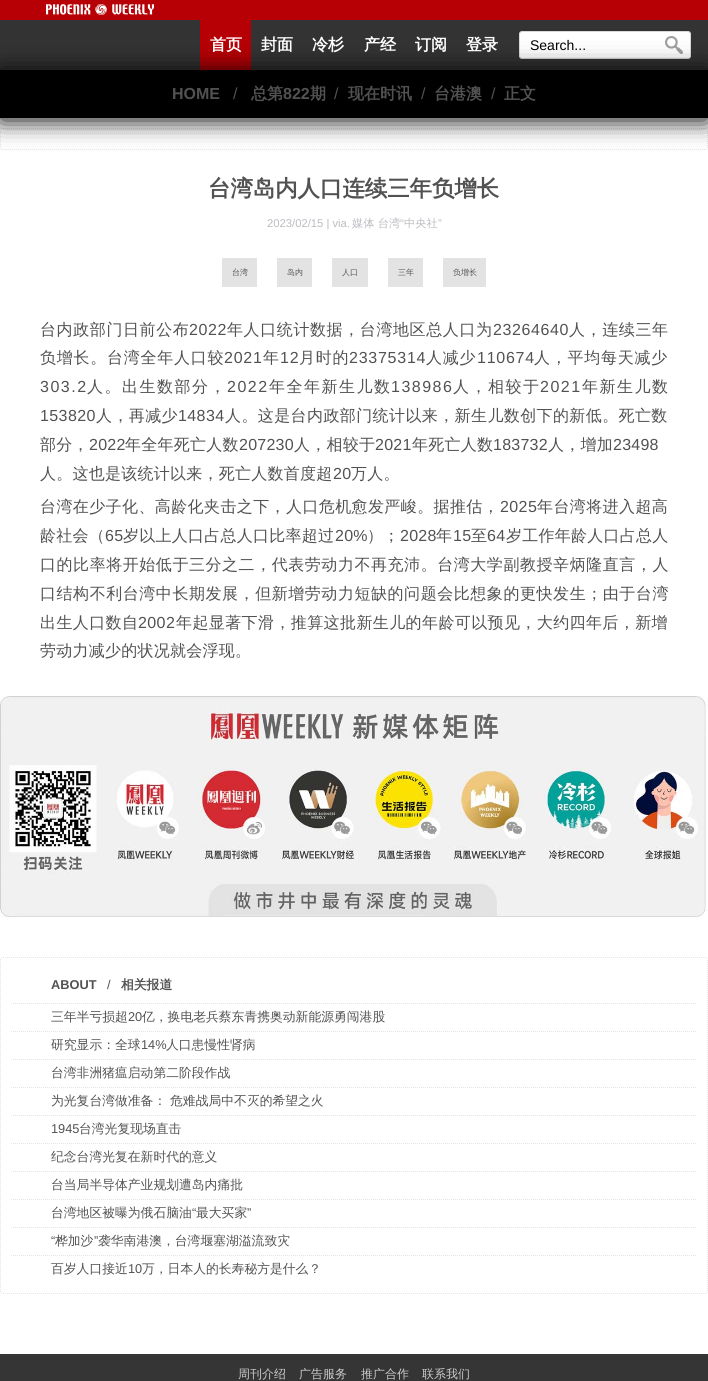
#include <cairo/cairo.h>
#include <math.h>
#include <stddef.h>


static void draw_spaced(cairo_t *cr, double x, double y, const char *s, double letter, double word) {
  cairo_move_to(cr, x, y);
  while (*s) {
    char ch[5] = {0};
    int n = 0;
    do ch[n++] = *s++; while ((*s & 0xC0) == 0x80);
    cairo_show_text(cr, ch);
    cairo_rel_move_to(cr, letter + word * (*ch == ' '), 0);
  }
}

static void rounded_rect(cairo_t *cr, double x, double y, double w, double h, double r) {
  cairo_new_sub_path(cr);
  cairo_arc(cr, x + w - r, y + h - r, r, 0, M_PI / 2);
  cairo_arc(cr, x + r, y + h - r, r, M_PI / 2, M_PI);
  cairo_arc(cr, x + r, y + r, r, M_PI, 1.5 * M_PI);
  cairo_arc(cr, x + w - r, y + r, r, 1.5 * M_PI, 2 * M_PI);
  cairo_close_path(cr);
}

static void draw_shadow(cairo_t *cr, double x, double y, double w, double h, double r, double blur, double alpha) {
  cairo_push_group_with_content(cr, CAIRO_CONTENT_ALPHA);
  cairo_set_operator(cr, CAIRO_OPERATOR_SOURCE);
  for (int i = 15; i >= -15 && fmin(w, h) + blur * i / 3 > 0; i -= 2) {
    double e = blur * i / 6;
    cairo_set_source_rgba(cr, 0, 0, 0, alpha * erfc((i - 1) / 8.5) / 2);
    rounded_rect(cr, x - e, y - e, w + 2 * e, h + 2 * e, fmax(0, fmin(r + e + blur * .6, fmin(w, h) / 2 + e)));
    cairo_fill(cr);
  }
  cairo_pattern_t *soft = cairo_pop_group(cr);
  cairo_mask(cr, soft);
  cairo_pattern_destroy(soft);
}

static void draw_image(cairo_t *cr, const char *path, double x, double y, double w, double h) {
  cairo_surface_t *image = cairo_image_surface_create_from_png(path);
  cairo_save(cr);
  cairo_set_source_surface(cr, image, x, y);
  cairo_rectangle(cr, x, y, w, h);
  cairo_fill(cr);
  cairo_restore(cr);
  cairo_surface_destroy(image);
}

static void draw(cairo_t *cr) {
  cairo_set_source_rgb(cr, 1, 1, 1);
  cairo_paint(cr);
  cairo_set_source_rgb(cr, 182 / 255.0, 0, 5 / 255.0);
  cairo_rectangle(cr, 0, 0, 708, 20);
  cairo_fill(cr);
  draw_image(cr, "images/1.png", 46, 4, 108, 11);
  cairo_set_source_rgb(cr, 51 / 255.0, 51 / 255.0, 51 / 255.0);
  cairo_rectangle(cr, 0, 20, 200, 50);
  cairo_fill(cr);
  cairo_rectangle(cr, 251, 20, 457, 50);
  cairo_fill(cr);
  cairo_set_source_rgb(cr, 182 / 255.0, 0, 5 / 255.0);
  cairo_rectangle(cr, 200, 20, 51, 50);
  cairo_fill(cr);
  cairo_set_source_rgb(cr, 1, 1, 1);
  rounded_rect(cr, 519.5, 31.5, 171, 27, 2.5);
  cairo_fill_preserve(cr);
  cairo_set_source_rgb(cr, 217 / 255.0, 217 / 255.0, 217 / 255.0);
  cairo_set_line_width(cr, 1);
  cairo_stroke(cr);
  draw_image(cr, "images/2.png", 665, 36, 18, 18);
  cairo_new_path(cr);
  cairo_move_to(cr, 3, 128.5);
  cairo_line_to(cr, 705, 128.5);
  cairo_curve_to(cr, 706.5, 128.5, 707.5, 129.5, 707.5, 131);
  cairo_line_to(cr, 707.5, 147);
  cairo_curve_to(cr, 707.5, 148.5, 706.5, 149.5, 705, 149.5);
  cairo_line_to(cr, 3, 149.5);
  cairo_curve_to(cr, 1.5, 149.5, 0.5, 148.5, 0.5, 147);
  cairo_line_to(cr, 0.5, 131);
  cairo_curve_to(cr, 0.5, 129.5, 1.5, 128.5, 3, 128.5);
  cairo_close_path(cr);
  cairo_set_source_rgb(cr, 229 / 255.0, 229 / 255.0, 229 / 255.0);
  cairo_set_dash(cr, (double[]){1, 1}, 2, 0);
  cairo_stroke(cr);
  cairo_set_source_rgb(cr, 0, 0, 0);
  draw_shadow(cr, 0, 72, 708, 48, 0, 12.5, 1);
  cairo_set_source_rgb(cr, 0, 0, 0);
  cairo_rectangle(cr, 0, 70, 708, 48);
  cairo_fill(cr);
  cairo_set_source_rgb(cr, 227 / 255.0, 227 / 255.0, 227 / 255.0);
  cairo_rectangle(cr, 222, 258, 35, 29);
  cairo_fill(cr);
  cairo_rectangle(cr, 277, 258, 35, 29);
  cairo_fill(cr);
  cairo_rectangle(cr, 332, 258, 36, 29);
  cairo_fill(cr);
  cairo_rectangle(cr, 388, 258, 35, 29);
  cairo_fill(cr);
  cairo_rectangle(cr, 443, 258, 43, 29);
  cairo_fill(cr);
  draw_image(cr, "images/3.png", 0, 696, 708, 221);
  cairo_new_path(cr);
  cairo_move_to(cr, 3, 957.5);
  cairo_line_to(cr, 705, 957.5);
  cairo_curve_to(cr, 706.5, 957.5, 707.5, 958.5, 707.5, 960);
  cairo_line_to(cr, 707.5, 1291);
  cairo_curve_to(cr, 707.5, 1292.5, 706.5, 1293.5, 705, 1293.5);
  cairo_line_to(cr, 3, 1293.5);
  cairo_curve_to(cr, 1.5, 1293.5, 0.5, 1292.5, 0.5, 1291);
  cairo_line_to(cr, 0.5, 960);
  cairo_curve_to(cr, 0.5, 958.5, 1.5, 957.5, 3, 957.5);
  cairo_close_path(cr);
  cairo_set_source_rgb(cr, 229 / 255.0, 229 / 255.0, 229 / 255.0);
  cairo_stroke(cr);
  cairo_new_path(cr);
  cairo_move_to(cr, 11, 1003.5);
  cairo_line_to(cr, 697, 1003.5);
  cairo_stroke(cr);
  cairo_new_path(cr);
  cairo_move_to(cr, 11, 1031.5);
  cairo_line_to(cr, 697, 1031.5);
  cairo_stroke(cr);
  cairo_new_path(cr);
  cairo_move_to(cr, 11, 1059.5);
  cairo_line_to(cr, 697, 1059.5);
  cairo_stroke(cr);
  cairo_new_path(cr);
  cairo_move_to(cr, 11, 1087.5);
  cairo_line_to(cr, 697, 1087.5);
  cairo_stroke(cr);
  cairo_new_path(cr);
  cairo_move_to(cr, 11, 1115.5);
  cairo_line_to(cr, 697, 1115.5);
  cairo_stroke(cr);
  cairo_new_path(cr);
  cairo_move_to(cr, 11, 1143.5);
  cairo_line_to(cr, 697, 1143.5);
  cairo_stroke(cr);
  cairo_new_path(cr);
  cairo_move_to(cr, 11, 1171.5);
  cairo_line_to(cr, 697, 1171.5);
  cairo_stroke(cr);
  cairo_new_path(cr);
  cairo_move_to(cr, 11, 1199.5);
  cairo_line_to(cr, 697, 1199.5);
  cairo_stroke(cr);
  cairo_new_path(cr);
  cairo_move_to(cr, 11, 1227.5);
  cairo_line_to(cr, 697, 1227.5);
  cairo_stroke(cr);
  cairo_new_path(cr);
  cairo_move_to(cr, 11, 1255.5);
  cairo_line_to(cr, 697, 1255.5);
  cairo_stroke(cr);
  cairo_set_source_rgb(cr, 53 / 255.0, 53 / 255.0, 53 / 255.0);
  cairo_rectangle(cr, 0, 1354, 708, 27);
  cairo_fill(cr);
  cairo_select_font_face(cr, "WenQuanYi Zen Hei", CAIRO_FONT_SLANT_NORMAL, CAIRO_FONT_WEIGHT_BOLD);
  cairo_set_font_size(cr, 16);
  cairo_set_source_rgb(cr, 1, 1, 1);
  cairo_move_to(cr, 210, 50);
  cairo_show_text(cr, "首页");
  cairo_move_to(cr, 261, 50);
  cairo_show_text(cr, "封面");
  cairo_move_to(cr, 312, 50);
  cairo_show_text(cr, "冷杉");
  cairo_move_to(cr, 364, 50);
  cairo_show_text(cr, "产经");
  cairo_move_to(cr, 415, 50);
  cairo_show_text(cr, "订阅");
  cairo_move_to(cr, 466, 50);
  cairo_show_text(cr, "登录");
  cairo_select_font_face(cr, "Liberation Sans", CAIRO_FONT_SLANT_NORMAL, CAIRO_FONT_WEIGHT_NORMAL);
  cairo_set_font_size(cr, 14);
  cairo_set_source_rgb(cr, 0, 0, 0);
  cairo_move_to(cr, 530, 50);
  cairo_show_text(cr, "Search...");
  cairo_select_font_face(cr, "Liberation Sans", CAIRO_FONT_SLANT_NORMAL, CAIRO_FONT_WEIGHT_BOLD);
  cairo_set_font_size(cr, 16);
  cairo_set_source_rgb(cr, 82 / 255.0, 82 / 255.0, 82 / 255.0);
  cairo_move_to(cr, 172, 99);
  cairo_show_text(cr, "HOME");
  cairo_select_font_face(cr, "Liberation Sans", CAIRO_FONT_SLANT_NORMAL, CAIRO_FONT_WEIGHT_NORMAL);
  cairo_move_to(cr, 233, 99);
  cairo_show_text(cr, "/");
  cairo_select_font_face(cr, "WenQuanYi Zen Hei", CAIRO_FONT_SLANT_NORMAL, CAIRO_FONT_WEIGHT_BOLD);
  cairo_move_to(cr, 251, 99);
  cairo_show_text(cr, "总第");
  cairo_select_font_face(cr, "Liberation Sans", CAIRO_FONT_SLANT_NORMAL, CAIRO_FONT_WEIGHT_BOLD);
  cairo_move_to(cr, 283, 99);
  cairo_show_text(cr, "822");
  cairo_select_font_face(cr, "WenQuanYi Zen Hei", CAIRO_FONT_SLANT_NORMAL, CAIRO_FONT_WEIGHT_BOLD);
  cairo_move_to(cr, 310, 99);
  cairo_show_text(cr, "期");
  cairo_select_font_face(cr, "Liberation Sans", CAIRO_FONT_SLANT_NORMAL, CAIRO_FONT_WEIGHT_NORMAL);
  cairo_move_to(cr, 334, 99);
  cairo_show_text(cr, "/");
  cairo_select_font_face(cr, "WenQuanYi Zen Hei", CAIRO_FONT_SLANT_NORMAL, CAIRO_FONT_WEIGHT_BOLD);
  cairo_move_to(cr, 348, 99);
  cairo_show_text(cr, "现在时讯");
  cairo_select_font_face(cr, "Liberation Sans", CAIRO_FONT_SLANT_NORMAL, CAIRO_FONT_WEIGHT_NORMAL);
  cairo_move_to(cr, 421, 99);
  cairo_show_text(cr, "/");
  cairo_select_font_face(cr, "WenQuanYi Zen Hei", CAIRO_FONT_SLANT_NORMAL, CAIRO_FONT_WEIGHT_BOLD);
  cairo_move_to(cr, 434, 99);
  cairo_show_text(cr, "台港澳");
  cairo_select_font_face(cr, "Liberation Sans", CAIRO_FONT_SLANT_NORMAL, CAIRO_FONT_WEIGHT_NORMAL);
  cairo_move_to(cr, 491, 99);
  cairo_show_text(cr, "/");
  cairo_select_font_face(cr, "WenQuanYi Zen Hei", CAIRO_FONT_SLANT_NORMAL, CAIRO_FONT_WEIGHT_BOLD);
  cairo_move_to(cr, 504, 99);
  cairo_show_text(cr, "正文");
  cairo_set_font_size(cr, 22.4);
  cairo_move_to(cr, 208, 196);
  cairo_show_text(cr, "台湾岛内人口连续三年负增长");
  cairo_select_font_face(cr, "Liberation Sans", CAIRO_FONT_SLANT_NORMAL, CAIRO_FONT_WEIGHT_NORMAL);
  cairo_set_font_size(cr, 11.25);
  cairo_set_source_rgb(cr, 187 / 255.0, 187 / 255.0, 193 / 255.0);
  cairo_move_to(cr, 267, 227);
  cairo_show_text(cr, "2023/02/15 | via.");
  cairo_select_font_face(cr, "WenQuanYi Zen Hei Medium", CAIRO_FONT_SLANT_NORMAL, CAIRO_FONT_WEIGHT_NORMAL);
  cairo_move_to(cr, 352, 227);
  cairo_show_text(cr, "媒体 台湾");
  cairo_select_font_face(cr, "Liberation Sans", CAIRO_FONT_SLANT_NORMAL, CAIRO_FONT_WEIGHT_NORMAL);
  cairo_move_to(cr, 400, 227);
  cairo_show_text(cr, "“");
  cairo_select_font_face(cr, "WenQuanYi Zen Hei Medium", CAIRO_FONT_SLANT_NORMAL, CAIRO_FONT_WEIGHT_NORMAL);
  cairo_move_to(cr, 404, 227);
  cairo_show_text(cr, "中央社");
  cairo_select_font_face(cr, "Liberation Sans", CAIRO_FONT_SLANT_NORMAL, CAIRO_FONT_WEIGHT_NORMAL);
  cairo_move_to(cr, 438, 227);
  cairo_show_text(cr, "”");
  cairo_select_font_face(cr, "WenQuanYi Zen Hei Medium", CAIRO_FONT_SLANT_NORMAL, CAIRO_FONT_WEIGHT_NORMAL);
  cairo_set_font_size(cr, 8);
  cairo_set_source_rgb(cr, 82 / 255.0, 82 / 255.0, 82 / 255.0);
  cairo_move_to(cr, 232, 275);
  cairo_show_text(cr, "台湾");
  cairo_move_to(cr, 287, 275);
  cairo_show_text(cr, "岛内");
  cairo_move_to(cr, 342, 275);
  cairo_show_text(cr, "人口");
  cairo_move_to(cr, 398, 275);
  cairo_show_text(cr, "三年");
  cairo_move_to(cr, 453, 275);
  cairo_show_text(cr, "负增长");
  cairo_set_font_size(cr, 16);
  draw_spaced(cr, 40, 335, "台内政部门日前公布", 0.6, 0);
  cairo_select_font_face(cr, "Liberation Sans", CAIRO_FONT_SLANT_NORMAL, CAIRO_FONT_WEIGHT_NORMAL);
  draw_spaced(cr, 189, 335, "2022", 0.6, 0);
  cairo_select_font_face(cr, "WenQuanYi Zen Hei Medium", CAIRO_FONT_SLANT_NORMAL, CAIRO_FONT_WEIGHT_NORMAL);
  draw_spaced(cr, 227, 335, "年人口统计数据，台湾地区总人口为", 0.6, 0);
  cairo_select_font_face(cr, "Liberation Sans", CAIRO_FONT_SLANT_NORMAL, CAIRO_FONT_WEIGHT_NORMAL);
  draw_spaced(cr, 493, 335, "23264640", 0.6, 0);
  cairo_select_font_face(cr, "WenQuanYi Zen Hei Medium", CAIRO_FONT_SLANT_NORMAL, CAIRO_FONT_WEIGHT_NORMAL);
  draw_spaced(cr, 569, 335, "人，连续三年", 0.6, 0);
  draw_spaced(cr, 40, 363, "负增长。台湾全年人口较", 0.75, 0);
  cairo_select_font_face(cr, "Liberation Sans", CAIRO_FONT_SLANT_NORMAL, CAIRO_FONT_WEIGHT_NORMAL);
  draw_spaced(cr, 224, 363, "2021", 0.75, 0);
  cairo_select_font_face(cr, "WenQuanYi Zen Hei Medium", CAIRO_FONT_SLANT_NORMAL, CAIRO_FONT_WEIGHT_NORMAL);
  draw_spaced(cr, 263, 363, "年", 0.75, 0);
  cairo_select_font_face(cr, "Liberation Sans", CAIRO_FONT_SLANT_NORMAL, CAIRO_FONT_WEIGHT_NORMAL);
  draw_spaced(cr, 280, 363, "12", 0.75, 0);
  cairo_select_font_face(cr, "WenQuanYi Zen Hei Medium", CAIRO_FONT_SLANT_NORMAL, CAIRO_FONT_WEIGHT_NORMAL);
  draw_spaced(cr, 299, 363, "月时的", 0.75, 0);
  cairo_select_font_face(cr, "Liberation Sans", CAIRO_FONT_SLANT_NORMAL, CAIRO_FONT_WEIGHT_NORMAL);
  draw_spaced(cr, 349, 363, "23375314", 0.75, 0);
  cairo_select_font_face(cr, "WenQuanYi Zen Hei Medium", CAIRO_FONT_SLANT_NORMAL, CAIRO_FONT_WEIGHT_NORMAL);
  draw_spaced(cr, 426, 363, "人减少", 0.75, 0);
  cairo_select_font_face(cr, "Liberation Sans", CAIRO_FONT_SLANT_NORMAL, CAIRO_FONT_WEIGHT_NORMAL);
  draw_spaced(cr, 477, 363, "110674", 0.75, 0);
  cairo_select_font_face(cr, "WenQuanYi Zen Hei Medium", CAIRO_FONT_SLANT_NORMAL, CAIRO_FONT_WEIGHT_NORMAL);
  draw_spaced(cr, 534, 363, "人，平均每天减少", 0.75, 0);
  cairo_select_font_face(cr, "Liberation Sans", CAIRO_FONT_SLANT_NORMAL, CAIRO_FONT_WEIGHT_NORMAL);
  draw_spaced(cr, 40, 392, "303.2", 1.5, 0);
  cairo_select_font_face(cr, "WenQuanYi Zen Hei Medium", CAIRO_FONT_SLANT_NORMAL, CAIRO_FONT_WEIGHT_NORMAL);
  draw_spaced(cr, 87, 392, "人。出生数部分，", 1.5, 0);
  cairo_select_font_face(cr, "Liberation Sans", CAIRO_FONT_SLANT_NORMAL, CAIRO_FONT_WEIGHT_NORMAL);
  draw_spaced(cr, 227, 392, "2022", 1.5, 0);
  cairo_select_font_face(cr, "WenQuanYi Zen Hei Medium", CAIRO_FONT_SLANT_NORMAL, CAIRO_FONT_WEIGHT_NORMAL);
  draw_spaced(cr, 269, 392, "年全年新生儿数", 1.5, 0);
  cairo_select_font_face(cr, "Liberation Sans", CAIRO_FONT_SLANT_NORMAL, CAIRO_FONT_WEIGHT_NORMAL);
  draw_spaced(cr, 391, 392, "138986", 1.5, 0);
  cairo_select_font_face(cr, "WenQuanYi Zen Hei Medium", CAIRO_FONT_SLANT_NORMAL, CAIRO_FONT_WEIGHT_NORMAL);
  draw_spaced(cr, 453, 392, "人，相较于", 1.5, 0);
  cairo_select_font_face(cr, "Liberation Sans", CAIRO_FONT_SLANT_NORMAL, CAIRO_FONT_WEIGHT_NORMAL);
  draw_spaced(cr, 540, 392, "2021", 1.5, 0);
  cairo_select_font_face(cr, "WenQuanYi Zen Hei Medium", CAIRO_FONT_SLANT_NORMAL, CAIRO_FONT_WEIGHT_NORMAL);
  draw_spaced(cr, 582, 392, "年新生儿数", 1.5, 0);
  cairo_select_font_face(cr, "Liberation Sans", CAIRO_FONT_SLANT_NORMAL, CAIRO_FONT_WEIGHT_NORMAL);
  draw_spaced(cr, 40, 421, "153820", 0.4, 0);
  cairo_select_font_face(cr, "WenQuanYi Zen Hei Medium", CAIRO_FONT_SLANT_NORMAL, CAIRO_FONT_WEIGHT_NORMAL);
  draw_spaced(cr, 96, 421, "人，再减少", 0.4, 0);
  cairo_select_font_face(cr, "Liberation Sans", CAIRO_FONT_SLANT_NORMAL, CAIRO_FONT_WEIGHT_NORMAL);
  draw_spaced(cr, 178, 421, "14834", 0.4, 0);
  cairo_select_font_face(cr, "WenQuanYi Zen Hei Medium", CAIRO_FONT_SLANT_NORMAL, CAIRO_FONT_WEIGHT_NORMAL);
  draw_spaced(cr, 225, 421, "人。这是台内政部门统计以来，新生儿数创下的新低。死亡数", 0.4, 0);
  draw_spaced(cr, 40, 450, "部分，", 0.25, 0);
  cairo_select_font_face(cr, "Liberation Sans", CAIRO_FONT_SLANT_NORMAL, CAIRO_FONT_WEIGHT_NORMAL);
  draw_spaced(cr, 89, 450, "2022", 0.25, 0);
  cairo_select_font_face(cr, "WenQuanYi Zen Hei Medium", CAIRO_FONT_SLANT_NORMAL, CAIRO_FONT_WEIGHT_NORMAL);
  draw_spaced(cr, 125, 450, "年全年死亡人数", 0.25, 0);
  cairo_select_font_face(cr, "Liberation Sans", CAIRO_FONT_SLANT_NORMAL, CAIRO_FONT_WEIGHT_NORMAL);
  draw_spaced(cr, 239, 450, "207230", 0.25, 0);
  cairo_select_font_face(cr, "WenQuanYi Zen Hei Medium", CAIRO_FONT_SLANT_NORMAL, CAIRO_FONT_WEIGHT_NORMAL);
  draw_spaced(cr, 294, 450, "人，相较于", 0.25, 0);
  cairo_select_font_face(cr, "Liberation Sans", CAIRO_FONT_SLANT_NORMAL, CAIRO_FONT_WEIGHT_NORMAL);
  draw_spaced(cr, 375, 450, "2021", 0.25, 0);
  cairo_select_font_face(cr, "WenQuanYi Zen Hei Medium", CAIRO_FONT_SLANT_NORMAL, CAIRO_FONT_WEIGHT_NORMAL);
  draw_spaced(cr, 412, 450, "年死亡人数", 0.25, 0);
  cairo_select_font_face(cr, "Liberation Sans", CAIRO_FONT_SLANT_NORMAL, CAIRO_FONT_WEIGHT_NORMAL);
  draw_spaced(cr, 493, 450, "183732", 0.25, 0);
  cairo_select_font_face(cr, "WenQuanYi Zen Hei Medium", CAIRO_FONT_SLANT_NORMAL, CAIRO_FONT_WEIGHT_NORMAL);
  draw_spaced(cr, 548, 450, "人，增加", 0.25, 0);
  cairo_select_font_face(cr, "Liberation Sans", CAIRO_FONT_SLANT_NORMAL, CAIRO_FONT_WEIGHT_NORMAL);
  draw_spaced(cr, 613, 450, "23498", 0.25, 0);
  cairo_select_font_face(cr, "WenQuanYi Zen Hei Medium", CAIRO_FONT_SLANT_NORMAL, CAIRO_FONT_WEIGHT_NORMAL);
  draw_spaced(cr, 40, 479, "人。这也是该统计以来，死亡人数首度超", 0.25, 0);
  cairo_select_font_face(cr, "Liberation Sans", CAIRO_FONT_SLANT_NORMAL, CAIRO_FONT_WEIGHT_NORMAL);
  draw_spaced(cr, 333, 479, "20", 0.25, 0);
  cairo_select_font_face(cr, "WenQuanYi Zen Hei Medium", CAIRO_FONT_SLANT_NORMAL, CAIRO_FONT_WEIGHT_NORMAL);
  draw_spaced(cr, 351, 479, "万人。", 0.25, 0);
  draw_spaced(cr, 40, 512, "台湾在少子化、高龄化夹击之下，人口危机愈发严峻。据推估，", 0.4, 0);
  cairo_select_font_face(cr, "Liberation Sans", CAIRO_FONT_SLANT_NORMAL, CAIRO_FONT_WEIGHT_NORMAL);
  draw_spaced(cr, 500, 512, "2025", 0.4, 0);
  cairo_select_font_face(cr, "WenQuanYi Zen Hei Medium", CAIRO_FONT_SLANT_NORMAL, CAIRO_FONT_WEIGHT_NORMAL);
  draw_spaced(cr, 537, 512, "年台湾将进入超高", 0.4, 0);
  draw_spaced(cr, 40, 541, "龄社会（", 0.25, 0);
  cairo_select_font_face(cr, "Liberation Sans", CAIRO_FONT_SLANT_NORMAL, CAIRO_FONT_WEIGHT_NORMAL);
  draw_spaced(cr, 105, 541, "65", 0.25, 0);
  cairo_select_font_face(cr, "WenQuanYi Zen Hei Medium", CAIRO_FONT_SLANT_NORMAL, CAIRO_FONT_WEIGHT_NORMAL);
  draw_spaced(cr, 123, 541, "岁以上人口占总人口比率超过", 0.25, 0);
  cairo_select_font_face(cr, "Liberation Sans", CAIRO_FONT_SLANT_NORMAL, CAIRO_FONT_WEIGHT_NORMAL);
  draw_spaced(cr, 335, 541, "20%", 0.25, 0);
  cairo_select_font_face(cr, "WenQuanYi Zen Hei Medium", CAIRO_FONT_SLANT_NORMAL, CAIRO_FONT_WEIGHT_NORMAL);
  draw_spaced(cr, 367, 541, "）；", 0.25, 0);
  cairo_select_font_face(cr, "Liberation Sans", CAIRO_FONT_SLANT_NORMAL, CAIRO_FONT_WEIGHT_NORMAL);
  draw_spaced(cr, 400, 541, "2028", 0.25, 0);
  cairo_select_font_face(cr, "WenQuanYi Zen Hei Medium", CAIRO_FONT_SLANT_NORMAL, CAIRO_FONT_WEIGHT_NORMAL);
  draw_spaced(cr, 436, 541, "年", 0.25, 0);
  cairo_select_font_face(cr, "Liberation Sans", CAIRO_FONT_SLANT_NORMAL, CAIRO_FONT_WEIGHT_NORMAL);
  draw_spaced(cr, 453, 541, "15", 0.25, 0);
  cairo_select_font_face(cr, "WenQuanYi Zen Hei Medium", CAIRO_FONT_SLANT_NORMAL, CAIRO_FONT_WEIGHT_NORMAL);
  draw_spaced(cr, 471, 541, "至", 0.25, 0);
  cairo_select_font_face(cr, "Liberation Sans", CAIRO_FONT_SLANT_NORMAL, CAIRO_FONT_WEIGHT_NORMAL);
  draw_spaced(cr, 487, 541, "64", 0.25, 0);
  cairo_select_font_face(cr, "WenQuanYi Zen Hei Medium", CAIRO_FONT_SLANT_NORMAL, CAIRO_FONT_WEIGHT_NORMAL);
  draw_spaced(cr, 506, 541, "岁工作年龄人口占总人", 0.25, 0);
  draw_spaced(cr, 40, 570, "口的比率将开始低于三分之二，代表劳动力不再充沛。台湾大学副教授辛炳隆直言，人", 0.55, 0);
  draw_spaced(cr, 40, 599, "口结构不利台湾中长期发展，但新增劳动力短缺的问题会比想象的更快发生；由于台湾", 0.55, 0);
  draw_spaced(cr, 40, 628, "出生人口数自", 0.4, 0);
  cairo_select_font_face(cr, "Liberation Sans", CAIRO_FONT_SLANT_NORMAL, CAIRO_FONT_WEIGHT_NORMAL);
  draw_spaced(cr, 138, 628, "2002", 0.4, 0);
  cairo_select_font_face(cr, "WenQuanYi Zen Hei Medium", CAIRO_FONT_SLANT_NORMAL, CAIRO_FONT_WEIGHT_NORMAL);
  draw_spaced(cr, 176, 628, "年起显著下滑，推算这批新生儿的年龄可以预见，大约四年后，新增", 0.4, 0);
  draw_spaced(cr, 40, 656, "劳动力减少的状况就会浮现。", 0.25, 0);
  cairo_select_font_face(cr, "Liberation Sans", CAIRO_FONT_SLANT_NORMAL, CAIRO_FONT_WEIGHT_BOLD);
  cairo_set_font_size(cr, 12.8);
  cairo_move_to(cr, 51, 989);
  cairo_show_text(cr, "ABOUT");
  cairo_select_font_face(cr, "Liberation Sans", CAIRO_FONT_SLANT_NORMAL, CAIRO_FONT_WEIGHT_NORMAL);
  cairo_move_to(cr, 107, 989);
  cairo_show_text(cr, "/");
  cairo_select_font_face(cr, "WenQuanYi Zen Hei", CAIRO_FONT_SLANT_NORMAL, CAIRO_FONT_WEIGHT_BOLD);
  cairo_move_to(cr, 121, 989);
  cairo_show_text(cr, "相关报道");
  cairo_select_font_face(cr, "WenQuanYi Zen Hei Medium", CAIRO_FONT_SLANT_NORMAL, CAIRO_FONT_WEIGHT_NORMAL);
  cairo_move_to(cr, 51, 1021);
  cairo_show_text(cr, "三年半亏损超");
  cairo_select_font_face(cr, "Liberation Sans", CAIRO_FONT_SLANT_NORMAL, CAIRO_FONT_WEIGHT_NORMAL);
  cairo_move_to(cr, 128, 1021);
  cairo_show_text(cr, "20");
  cairo_select_font_face(cr, "WenQuanYi Zen Hei Medium", CAIRO_FONT_SLANT_NORMAL, CAIRO_FONT_WEIGHT_NORMAL);
  cairo_move_to(cr, 142, 1021);
  cairo_show_text(cr, "亿，换电老兵蔡东青携奥动新能源勇闯港股");
  cairo_move_to(cr, 51, 1049);
  cairo_show_text(cr, "研究显示：全球");
  cairo_select_font_face(cr, "Liberation Sans", CAIRO_FONT_SLANT_NORMAL, CAIRO_FONT_WEIGHT_NORMAL);
  cairo_move_to(cr, 141, 1049);
  cairo_show_text(cr, "14%");
  cairo_select_font_face(cr, "WenQuanYi Zen Hei Medium", CAIRO_FONT_SLANT_NORMAL, CAIRO_FONT_WEIGHT_NORMAL);
  cairo_move_to(cr, 166, 1049);
  cairo_show_text(cr, "人口患慢性肾病");
  cairo_move_to(cr, 51, 1077);
  cairo_show_text(cr, "台湾非洲猪瘟启动第二阶段作战");
  cairo_move_to(cr, 51, 1105);
  cairo_show_text(cr, "为光复台湾做准备： 危难战局中不灭的希望之火");
  cairo_select_font_face(cr, "Liberation Sans", CAIRO_FONT_SLANT_NORMAL, CAIRO_FONT_WEIGHT_NORMAL);
  cairo_move_to(cr, 51, 1133);
  cairo_show_text(cr, "1945");
  cairo_select_font_face(cr, "WenQuanYi Zen Hei Medium", CAIRO_FONT_SLANT_NORMAL, CAIRO_FONT_WEIGHT_NORMAL);
  cairo_move_to(cr, 79, 1133);
  cairo_show_text(cr, "台湾光复现场直击");
  cairo_move_to(cr, 51, 1161);
  cairo_show_text(cr, "纪念台湾光复在新时代的意义");
  cairo_move_to(cr, 51, 1189);
  cairo_show_text(cr, "台当局半导体产业规划遭岛内痛批");
  cairo_move_to(cr, 51, 1217);
  cairo_show_text(cr, "台湾地区被曝为俄石脑油");
  cairo_select_font_face(cr, "Liberation Sans", CAIRO_FONT_SLANT_NORMAL, CAIRO_FONT_WEIGHT_NORMAL);
  cairo_move_to(cr, 192, 1217);
  cairo_show_text(cr, "“");
  cairo_select_font_face(cr, "WenQuanYi Zen Hei Medium", CAIRO_FONT_SLANT_NORMAL, CAIRO_FONT_WEIGHT_NORMAL);
  cairo_move_to(cr, 196, 1217);
  cairo_show_text(cr, "最大买家");
  cairo_select_font_face(cr, "Liberation Sans", CAIRO_FONT_SLANT_NORMAL, CAIRO_FONT_WEIGHT_NORMAL);
  cairo_move_to(cr, 247, 1217);
  cairo_show_text(cr, "”");
  cairo_move_to(cr, 51, 1245);
  cairo_show_text(cr, "“");
  cairo_select_font_face(cr, "WenQuanYi Zen Hei Medium", CAIRO_FONT_SLANT_NORMAL, CAIRO_FONT_WEIGHT_NORMAL);
  cairo_move_to(cr, 55, 1245);
  cairo_show_text(cr, "桦加沙");
  cairo_select_font_face(cr, "Liberation Sans", CAIRO_FONT_SLANT_NORMAL, CAIRO_FONT_WEIGHT_NORMAL);
  cairo_move_to(cr, 94, 1245);
  cairo_show_text(cr, "”");
  cairo_select_font_face(cr, "WenQuanYi Zen Hei Medium", CAIRO_FONT_SLANT_NORMAL, CAIRO_FONT_WEIGHT_NORMAL);
  cairo_move_to(cr, 98, 1245);
  cairo_show_text(cr, "袭华南港澳，台湾堰塞湖溢流致灾");
  cairo_move_to(cr, 51, 1273);
  cairo_show_text(cr, "百岁人口接近");
  cairo_select_font_face(cr, "Liberation Sans", CAIRO_FONT_SLANT_NORMAL, CAIRO_FONT_WEIGHT_NORMAL);
  cairo_move_to(cr, 128, 1273);
  cairo_show_text(cr, "10");
  cairo_select_font_face(cr, "WenQuanYi Zen Hei Medium", CAIRO_FONT_SLANT_NORMAL, CAIRO_FONT_WEIGHT_NORMAL);
  cairo_move_to(cr, 142, 1273);
  cairo_show_text(cr, "万，日本人的长寿秘方是什么？");
  cairo_set_font_size(cr, 12);
  cairo_set_source_rgb(cr, 204 / 255.0, 204 / 255.0, 204 / 255.0);
  cairo_move_to(cr, 238, 1378);
  cairo_show_text(cr, "周刊介绍");
  cairo_move_to(cr, 299, 1378);
  cairo_show_text(cr, "广告服务");
  cairo_move_to(cr, 361, 1378);
  cairo_show_text(cr, "推广合作");
  cairo_move_to(cr, 422, 1378);
  cairo_show_text(cr, "联系我们");
}

int main(void) {
  cairo_surface_t *surface = cairo_image_surface_create(CAIRO_FORMAT_RGB24, 708, 1381);
  cairo_t *cr = cairo_create(surface);
  cairo_font_options_t *options = cairo_font_options_create();
  cairo_font_options_set_hint_metrics(options, CAIRO_HINT_METRICS_OFF);
  cairo_font_options_set_hint_style(options, CAIRO_HINT_STYLE_NONE);
  cairo_set_font_options(cr, options);
  cairo_set_miter_limit(cr, 4);
  draw(cr);
  cairo_surface_write_to_png(surface, "out.png");
  cairo_font_options_destroy(options);
  cairo_destroy(cr);
  cairo_surface_destroy(surface);
  return 0;
}
